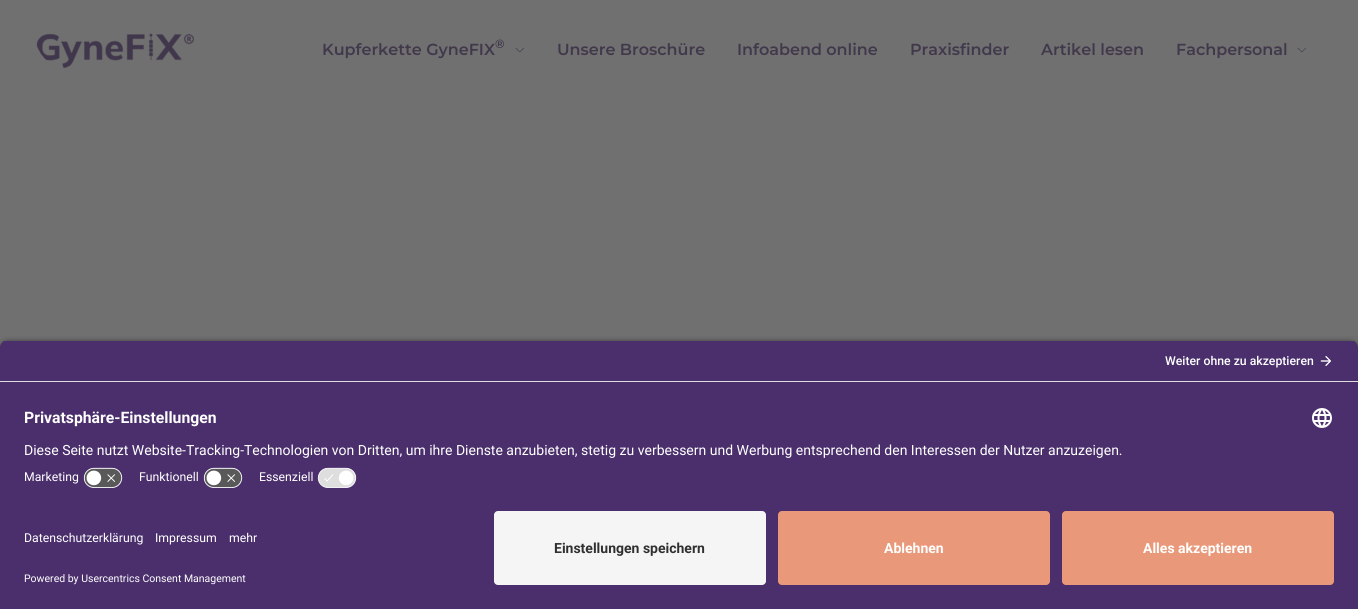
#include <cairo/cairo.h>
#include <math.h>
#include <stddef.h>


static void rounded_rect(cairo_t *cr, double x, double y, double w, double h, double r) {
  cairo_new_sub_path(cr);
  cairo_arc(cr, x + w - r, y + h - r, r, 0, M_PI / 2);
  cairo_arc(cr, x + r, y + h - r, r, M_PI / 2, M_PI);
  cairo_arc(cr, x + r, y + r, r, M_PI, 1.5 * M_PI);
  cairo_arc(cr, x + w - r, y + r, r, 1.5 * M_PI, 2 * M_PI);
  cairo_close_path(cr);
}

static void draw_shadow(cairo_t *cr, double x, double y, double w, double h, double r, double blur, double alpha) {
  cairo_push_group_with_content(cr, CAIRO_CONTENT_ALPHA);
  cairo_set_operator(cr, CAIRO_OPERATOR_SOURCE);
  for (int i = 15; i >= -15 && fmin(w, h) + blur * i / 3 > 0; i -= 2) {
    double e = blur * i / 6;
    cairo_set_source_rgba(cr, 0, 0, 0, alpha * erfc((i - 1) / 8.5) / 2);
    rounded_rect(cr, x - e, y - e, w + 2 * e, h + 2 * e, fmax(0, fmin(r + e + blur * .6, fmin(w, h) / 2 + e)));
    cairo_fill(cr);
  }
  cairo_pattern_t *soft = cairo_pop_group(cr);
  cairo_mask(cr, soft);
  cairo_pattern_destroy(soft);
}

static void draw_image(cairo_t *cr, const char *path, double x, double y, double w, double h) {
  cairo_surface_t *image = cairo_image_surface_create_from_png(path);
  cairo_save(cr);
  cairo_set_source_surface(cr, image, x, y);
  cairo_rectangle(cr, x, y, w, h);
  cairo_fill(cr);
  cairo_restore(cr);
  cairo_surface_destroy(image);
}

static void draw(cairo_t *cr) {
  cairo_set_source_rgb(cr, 112 / 255.0, 112 / 255.0, 112 / 255.0);
  cairo_paint(cr);
  draw_image(cr, "images/1.png", 36, 33, 159, 35);
  draw_image(cr, "images/2.png", 515, 47, 9, 6);
  draw_image(cr, "images/2.png", 1297, 47, 9, 6);
  cairo_set_source_rgb(cr, 0, 0, 0);
  draw_shadow(cr, 0, 343, 1358, 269, 8, 3.5, 0.8);
  cairo_save(cr);
  cairo_new_path(cr);
  cairo_move_to(cr, 8, 340);
  cairo_line_to(cr, 1350, 340);
  cairo_curve_to(cr, 1354.5, 340, 1358, 343.5, 1358, 348);
  cairo_line_to(cr, 1358, 503);
  cairo_line_to(cr, 0, 503);
  cairo_line_to(cr, 0, 348);
  cairo_curve_to(cr, 0, 343.5, 3.5, 340, 8, 340);
  cairo_close_path(cr);
  cairo_clip(cr);
  cairo_set_source_rgb(cr, 74 / 255.0, 47 / 255.0, 108 / 255.0);
  cairo_rectangle(cr, 0, 341, 1358, 40);
  cairo_fill(cr);
  cairo_restore(cr);
  cairo_set_source_rgb(cr, 222 / 255.0, 222 / 255.0, 222 / 255.0);
  cairo_rectangle(cr, 0, 381, 1358, 1);
  cairo_fill(cr);
  draw_image(cr, "images/3.png", 1320, 356, 11, 10);
  cairo_set_source_rgb(cr, 74 / 255.0, 47 / 255.0, 108 / 255.0);
  cairo_rectangle(cr, 0, 382, 1358, 227);
  cairo_fill(cr);
  draw_image(cr, "images/4.png", 1312, 408, 20, 20);
  draw_image(cr, "images/5.png", 83, 467, 40, 21);
  draw_image(cr, "images/5.png", 203, 467, 40, 21);
  draw_image(cr, "images/6.png", 317, 467, 40, 21);
  cairo_set_source_rgb(cr, 245 / 255.0, 245 / 255.0, 245 / 255.0);
  rounded_rect(cr, 494, 511, 272, 74, 4);
  cairo_fill(cr);
  cairo_set_source_rgb(cr, 233 / 255.0, 153 / 255.0, 122 / 255.0);
  rounded_rect(cr, 778, 511, 272, 74, 4);
  cairo_fill(cr);
  rounded_rect(cr, 1062, 511, 272, 74, 4);
  cairo_fill(cr);
  cairo_select_font_face(cr, "Montserrat SemiBold", CAIRO_FONT_SLANT_NORMAL, CAIRO_FONT_WEIGHT_NORMAL);
  cairo_set_font_size(cr, 16);
  cairo_set_source_rgb(cr, 66 / 255.0, 56 / 255.0, 76 / 255.0);
  cairo_move_to(cr, 322, 55);
  cairo_show_text(cr, "Kupferkette GyneFIX");
  cairo_set_font_size(cr, 12);
  cairo_move_to(cr, 495, 48);
  cairo_show_text(cr, "®");
  cairo_set_font_size(cr, 16);
  cairo_move_to(cr, 557, 55);
  cairo_show_text(cr, "Unsere Broschüre");
  cairo_move_to(cr, 737, 55);
  cairo_show_text(cr, "Infoabend online");
  cairo_move_to(cr, 910, 55);
  cairo_show_text(cr, "Praxisfinder");
  cairo_move_to(cr, 1041, 55);
  cairo_show_text(cr, "Artikel lesen");
  cairo_move_to(cr, 1176, 55);
  cairo_show_text(cr, "Fachpersonal");
  cairo_select_font_face(cr, "Roboto Medium", CAIRO_FONT_SLANT_NORMAL, CAIRO_FONT_WEIGHT_NORMAL);
  cairo_set_font_size(cr, 12.25);
  cairo_set_source_rgb(cr, 1, 1, 1);
  cairo_move_to(cr, 1165, 365);
  cairo_show_text(cr, "Weiter ohne zu akzeptieren");
  cairo_select_font_face(cr, "Roboto", CAIRO_FONT_SLANT_NORMAL, CAIRO_FONT_WEIGHT_BOLD);
  cairo_set_font_size(cr, 15.75);
  cairo_move_to(cr, 24, 423);
  cairo_show_text(cr, "Privatsphäre-Einstellungen");
  cairo_select_font_face(cr, "Roboto", CAIRO_FONT_SLANT_NORMAL, CAIRO_FONT_WEIGHT_NORMAL);
  cairo_set_font_size(cr, 14);
  cairo_move_to(cr, 24, 455);
  cairo_show_text(cr, "Diese Seite nutzt Website-Tracking-Technologien von Dritten, um ihre Dienste anzubieten, stetig zu verbessern und Werbung entsprechend den Interessen der Nutzer anzuzeigen.");
  cairo_set_font_size(cr, 12.25);
  cairo_move_to(cr, 24, 481);
  cairo_show_text(cr, "Marketing");
  cairo_move_to(cr, 139, 481);
  cairo_show_text(cr, "Funktionell");
  cairo_move_to(cr, 259, 481);
  cairo_show_text(cr, "Essenziell");
  cairo_move_to(cr, 24, 542);
  cairo_show_text(cr, "Datenschutzerklärung");
  cairo_move_to(cr, 155, 542);
  cairo_show_text(cr, "Impressum");
  cairo_move_to(cr, 229, 542);
  cairo_show_text(cr, "mehr");
  cairo_set_font_size(cr, 10.5);
  cairo_move_to(cr, 24, 582);
  cairo_show_text(cr, "Powered by Usercentrics Consent Management");
  cairo_select_font_face(cr, "Roboto", CAIRO_FONT_SLANT_NORMAL, CAIRO_FONT_WEIGHT_BOLD);
  cairo_set_font_size(cr, 14);
  cairo_set_source_rgb(cr, 48 / 255.0, 48 / 255.0, 48 / 255.0);
  cairo_move_to(cr, 554, 553);
  cairo_show_text(cr, "Einstellungen speichern");
  cairo_set_source_rgb(cr, 1, 1, 1);
  cairo_move_to(cr, 884, 553);
  cairo_show_text(cr, "Ablehnen");
  cairo_move_to(cr, 1143, 553);
  cairo_show_text(cr, "Alles akzeptieren");
}

int main(void) {
  cairo_surface_t *surface = cairo_image_surface_create(CAIRO_FORMAT_RGB24, 1358, 609);
  cairo_t *cr = cairo_create(surface);
  cairo_font_options_t *options = cairo_font_options_create();
  cairo_font_options_set_hint_metrics(options, CAIRO_HINT_METRICS_OFF);
  cairo_font_options_set_hint_style(options, CAIRO_HINT_STYLE_NONE);
  cairo_set_font_options(cr, options);
  cairo_set_miter_limit(cr, 4);
  draw(cr);
  cairo_surface_write_to_png(surface, "out.png");
  cairo_font_options_destroy(options);
  cairo_destroy(cr);
  cairo_surface_destroy(surface);
  return 0;
}
